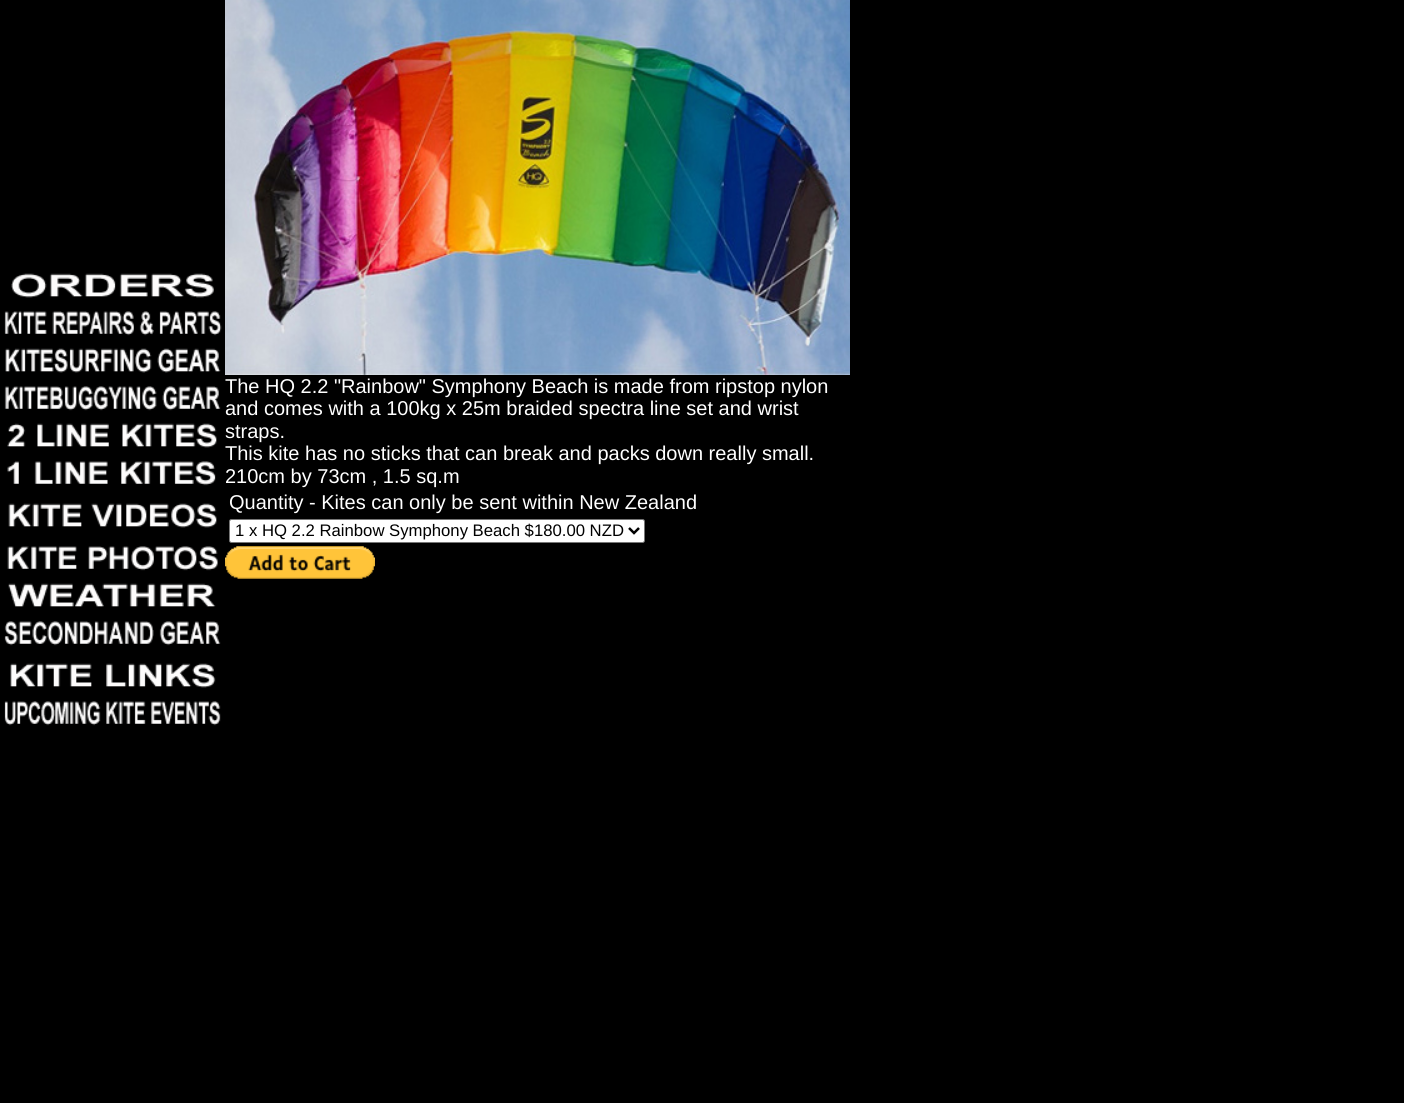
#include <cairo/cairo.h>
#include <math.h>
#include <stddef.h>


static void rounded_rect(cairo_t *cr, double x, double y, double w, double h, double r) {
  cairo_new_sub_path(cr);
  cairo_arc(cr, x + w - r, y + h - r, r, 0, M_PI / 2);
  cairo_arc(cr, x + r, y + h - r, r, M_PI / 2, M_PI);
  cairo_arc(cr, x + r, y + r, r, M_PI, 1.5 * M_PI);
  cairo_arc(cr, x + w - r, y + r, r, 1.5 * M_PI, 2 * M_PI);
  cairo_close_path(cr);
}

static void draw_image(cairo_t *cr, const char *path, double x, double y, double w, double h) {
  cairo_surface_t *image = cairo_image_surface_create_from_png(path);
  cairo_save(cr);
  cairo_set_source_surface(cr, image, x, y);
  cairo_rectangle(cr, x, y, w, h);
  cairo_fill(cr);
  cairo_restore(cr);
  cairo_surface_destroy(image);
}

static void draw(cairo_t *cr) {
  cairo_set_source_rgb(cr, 0, 0, 0);
  cairo_paint(cr);
  draw_image(cr, "images/1.png", 11, 273, 203, 25);
  draw_image(cr, "images/2.png", 4, 311, 218, 25);
  draw_image(cr, "images/3.png", 5, 348, 216, 25);
  draw_image(cr, "images/4.png", 4, 386, 217, 25);
  draw_image(cr, "images/5.png", 7, 423, 210, 25);
  draw_image(cr, "images/6.png", 7, 461, 209, 25);
  draw_image(cr, "images/7.png", 8, 503, 209, 25);
  draw_image(cr, "images/8.png", 7, 546, 211, 25);
  draw_image(cr, "images/9.png", 8, 583, 208, 24);
  draw_image(cr, "images/10.png", 4, 621, 217, 25);
  draw_image(cr, "images/11.png", 10, 663, 206, 25);
  draw_image(cr, "images/12.png", 4, 701, 217, 25);
  draw_image(cr, "images/13.png", 225, 0, 625, 375);
  cairo_set_source_rgb(cr, 1, 1, 1);
  rounded_rect(cr, 229.5, 519.5, 415, 23, 2);
  cairo_fill_preserve(cr);
  cairo_set_source_rgb(cr, 118 / 255.0, 118 / 255.0, 118 / 255.0);
  cairo_set_line_width(cr, 1);
  cairo_stroke(cr);
  cairo_new_path(cr);
  cairo_move_to(cr, 629, 528);
  cairo_line_to(cr, 634, 533);
  cairo_line_to(cr, 639, 528);
  cairo_set_source_rgb(cr, 0, 0, 0);
  cairo_set_line_width(cr, 2.5);
  cairo_stroke(cr);
  draw_image(cr, "images/14.png", 225, 546, 150, 33);
  cairo_select_font_face(cr, "Liberation Sans", CAIRO_FONT_SLANT_NORMAL, CAIRO_FONT_WEIGHT_NORMAL);
  cairo_set_font_size(cr, 20);
  cairo_set_source_rgb(cr, 1, 1, 1);
  cairo_move_to(cr, 225, 393);
  cairo_show_text(cr, "The HQ 2.2 \"Rainbow\" Symphony Beach is made from ripstop nylon");
  cairo_move_to(cr, 225, 415);
  cairo_show_text(cr, "and comes with a 100kg x 25m braided spectra line set and wrist");
  cairo_move_to(cr, 225, 438);
  cairo_show_text(cr, "straps.");
  cairo_move_to(cr, 225, 460);
  cairo_show_text(cr, "This kite has no sticks that can break and packs down really small.");
  cairo_move_to(cr, 225, 483);
  cairo_show_text(cr, "210cm by 73cm , 1.5 sq.m");
  cairo_move_to(cr, 229, 509);
  cairo_show_text(cr, "Quantity - Kites can only be sent within New Zealand");
  cairo_set_font_size(cr, 16.7);
  cairo_set_source_rgb(cr, 0, 0, 0);
  cairo_move_to(cr, 235, 536);
  cairo_show_text(cr, "1 x HQ 2.2 Rainbow Symphony Beach $180.00 NZD");
}

int main(void) {
  cairo_surface_t *surface = cairo_image_surface_create(CAIRO_FORMAT_RGB24, 1404, 1103);
  cairo_t *cr = cairo_create(surface);
  cairo_font_options_t *options = cairo_font_options_create();
  cairo_font_options_set_hint_metrics(options, CAIRO_HINT_METRICS_OFF);
  cairo_font_options_set_hint_style(options, CAIRO_HINT_STYLE_NONE);
  cairo_set_font_options(cr, options);
  cairo_set_miter_limit(cr, 4);
  draw(cr);
  cairo_surface_write_to_png(surface, "out.png");
  cairo_font_options_destroy(options);
  cairo_destroy(cr);
  cairo_surface_destroy(surface);
  return 0;
}
